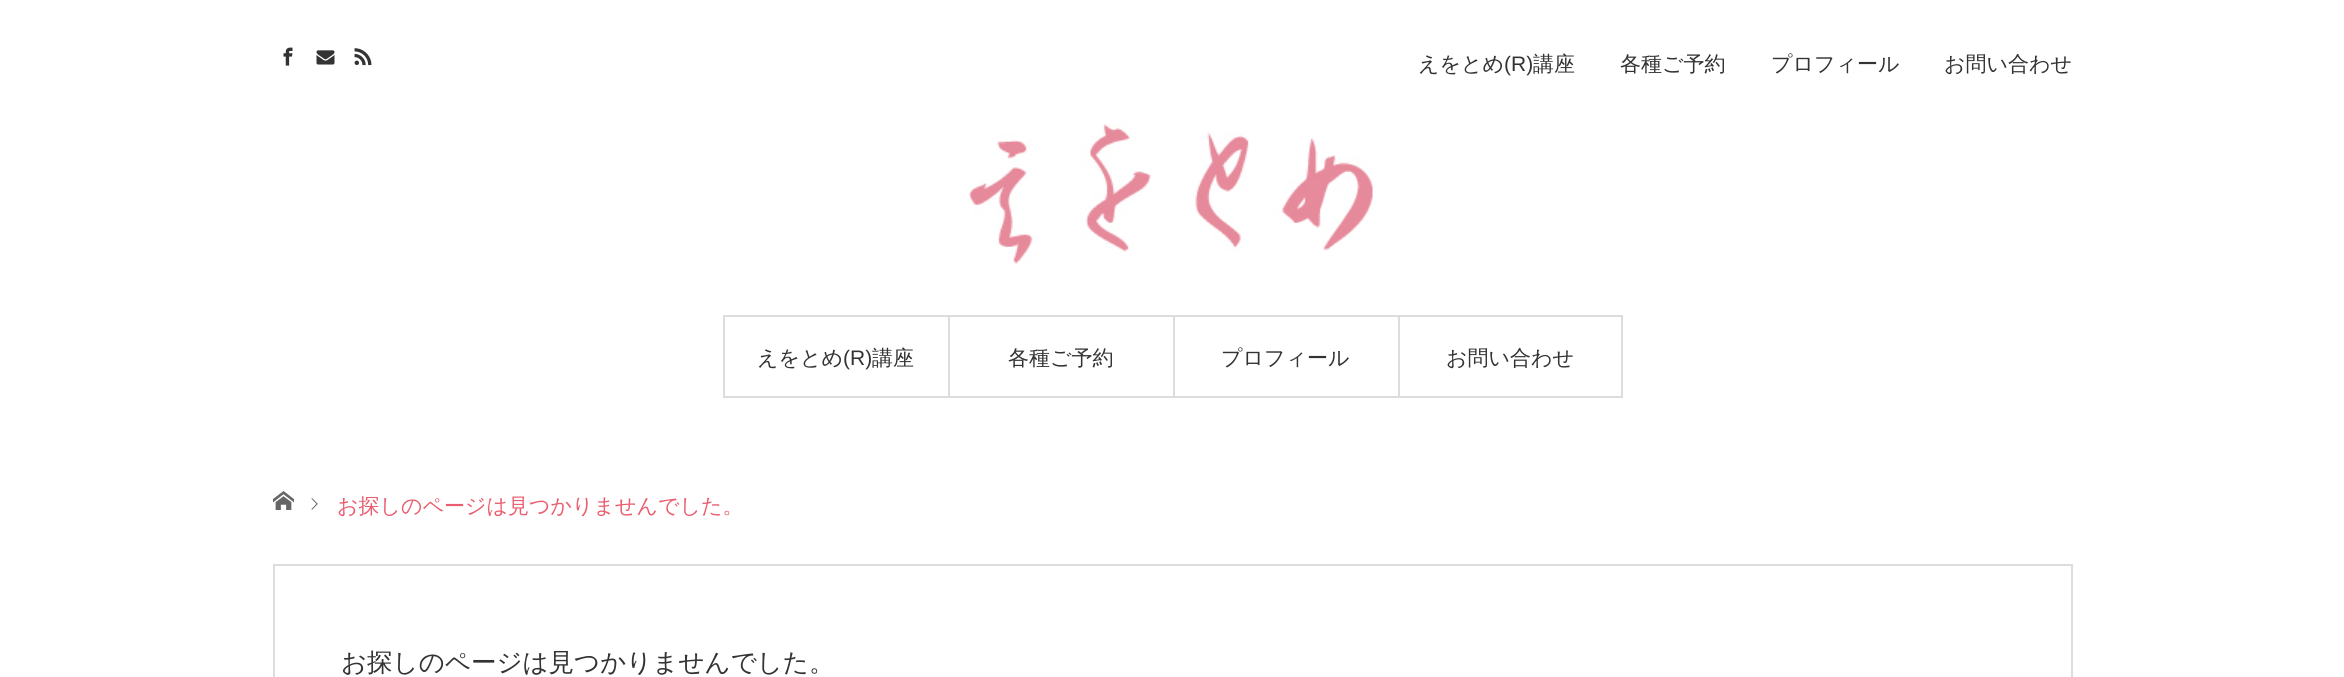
#include <cairo/cairo.h>
#include <math.h>
#include <stddef.h>


static void draw_image(cairo_t *cr, const char *path, double x, double y, double w, double h) {
  cairo_surface_t *image = cairo_image_surface_create_from_png(path);
  cairo_save(cr);
  cairo_set_source_surface(cr, image, x, y);
  cairo_rectangle(cr, x, y, w, h);
  cairo_fill(cr);
  cairo_restore(cr);
  cairo_surface_destroy(image);
}

static void draw(cairo_t *cr) {
  cairo_set_source_rgb(cr, 1, 1, 1);
  cairo_paint(cr);
  draw_image(cr, "images/1.png", 283, 47, 10, 19);
  draw_image(cr, "images/2.png", 316, 50, 19, 15);
  draw_image(cr, "images/3.png", 354, 48, 18, 18);
  draw_image(cr, "images/4.png", 968, 123, 405, 141);
  cairo_set_source_rgb(cr, 221 / 255.0, 221 / 255.0, 221 / 255.0);
  cairo_rectangle(cr, 723, 315, 675, 2);
  cairo_fill(cr);
  cairo_rectangle(cr, 723, 396, 675, 2);
  cairo_fill(cr);
  cairo_rectangle(cr, 723, 315, 2, 83);
  cairo_fill(cr);
  cairo_rectangle(cr, 948, 315, 2, 83);
  cairo_fill(cr);
  cairo_rectangle(cr, 1173, 315, 2, 83);
  cairo_fill(cr);
  cairo_rectangle(cr, 1399, 316, 223, 81);
  cairo_stroke(cr);
  draw_image(cr, "images/5.png", 273, 491, 21, 19);
  draw_image(cr, "images/6.png", 311, 498, 7, 12);
  cairo_rectangle(cr, 274, 565, 1798, 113);
  cairo_stroke(cr);
  cairo_select_font_face(cr, "WenQuanYi Zen Hei Medium", CAIRO_FONT_SLANT_NORMAL, CAIRO_FONT_WEIGHT_NORMAL);
  cairo_set_font_size(cr, 21);
  cairo_set_source_rgb(cr, 51 / 255.0, 51 / 255.0, 51 / 255.0);
  cairo_move_to(cr, 1418, 71);
  cairo_show_text(cr, "えをとめ");
  cairo_select_font_face(cr, "Liberation Sans", CAIRO_FONT_SLANT_NORMAL, CAIRO_FONT_WEIGHT_NORMAL);
  cairo_move_to(cr, 1504, 71);
  cairo_show_text(cr, "(R)");
  cairo_select_font_face(cr, "WenQuanYi Zen Hei Medium", CAIRO_FONT_SLANT_NORMAL, CAIRO_FONT_WEIGHT_NORMAL);
  cairo_move_to(cr, 1533, 71);
  cairo_show_text(cr, "講座");
  cairo_move_to(cr, 1620, 71);
  cairo_show_text(cr, "各種ご予約");
  cairo_move_to(cr, 1771, 71);
  cairo_show_text(cr, "プロフィール");
  cairo_move_to(cr, 1944, 71);
  cairo_show_text(cr, "お問い合わせ");
  cairo_move_to(cr, 757, 365);
  cairo_show_text(cr, "えをとめ");
  cairo_select_font_face(cr, "Liberation Sans", CAIRO_FONT_SLANT_NORMAL, CAIRO_FONT_WEIGHT_NORMAL);
  cairo_move_to(cr, 843, 365);
  cairo_show_text(cr, "(R)");
  cairo_select_font_face(cr, "WenQuanYi Zen Hei Medium", CAIRO_FONT_SLANT_NORMAL, CAIRO_FONT_WEIGHT_NORMAL);
  cairo_move_to(cr, 872, 365);
  cairo_show_text(cr, "講座");
  cairo_move_to(cr, 1008, 365);
  cairo_show_text(cr, "各種ご予約");
  cairo_move_to(cr, 1221, 365);
  cairo_show_text(cr, "プロフィール");
  cairo_move_to(cr, 1446, 365);
  cairo_show_text(cr, "お問い合わせ");
  cairo_set_source_rgb(cr, 234 / 255.0, 93 / 255.0, 110 / 255.0);
  cairo_move_to(cr, 337, 513);
  cairo_show_text(cr, "お探しのページは見つかりませんでした。");
  cairo_set_font_size(cr, 25.5);
  cairo_set_source_rgb(cr, 51 / 255.0, 51 / 255.0, 51 / 255.0);
  cairo_move_to(cr, 341, 671);
  cairo_show_text(cr, "お探しのページは見つかりませんでした。");
}

int main(void) {
  cairo_surface_t *surface = cairo_image_surface_create(CAIRO_FORMAT_RGB24, 2344, 677);
  cairo_t *cr = cairo_create(surface);
  cairo_font_options_t *options = cairo_font_options_create();
  cairo_font_options_set_hint_metrics(options, CAIRO_HINT_METRICS_OFF);
  cairo_font_options_set_hint_style(options, CAIRO_HINT_STYLE_NONE);
  cairo_set_font_options(cr, options);
  cairo_set_miter_limit(cr, 4);
  draw(cr);
  cairo_surface_write_to_png(surface, "out.png");
  cairo_font_options_destroy(options);
  cairo_destroy(cr);
  cairo_surface_destroy(surface);
  return 0;
}
